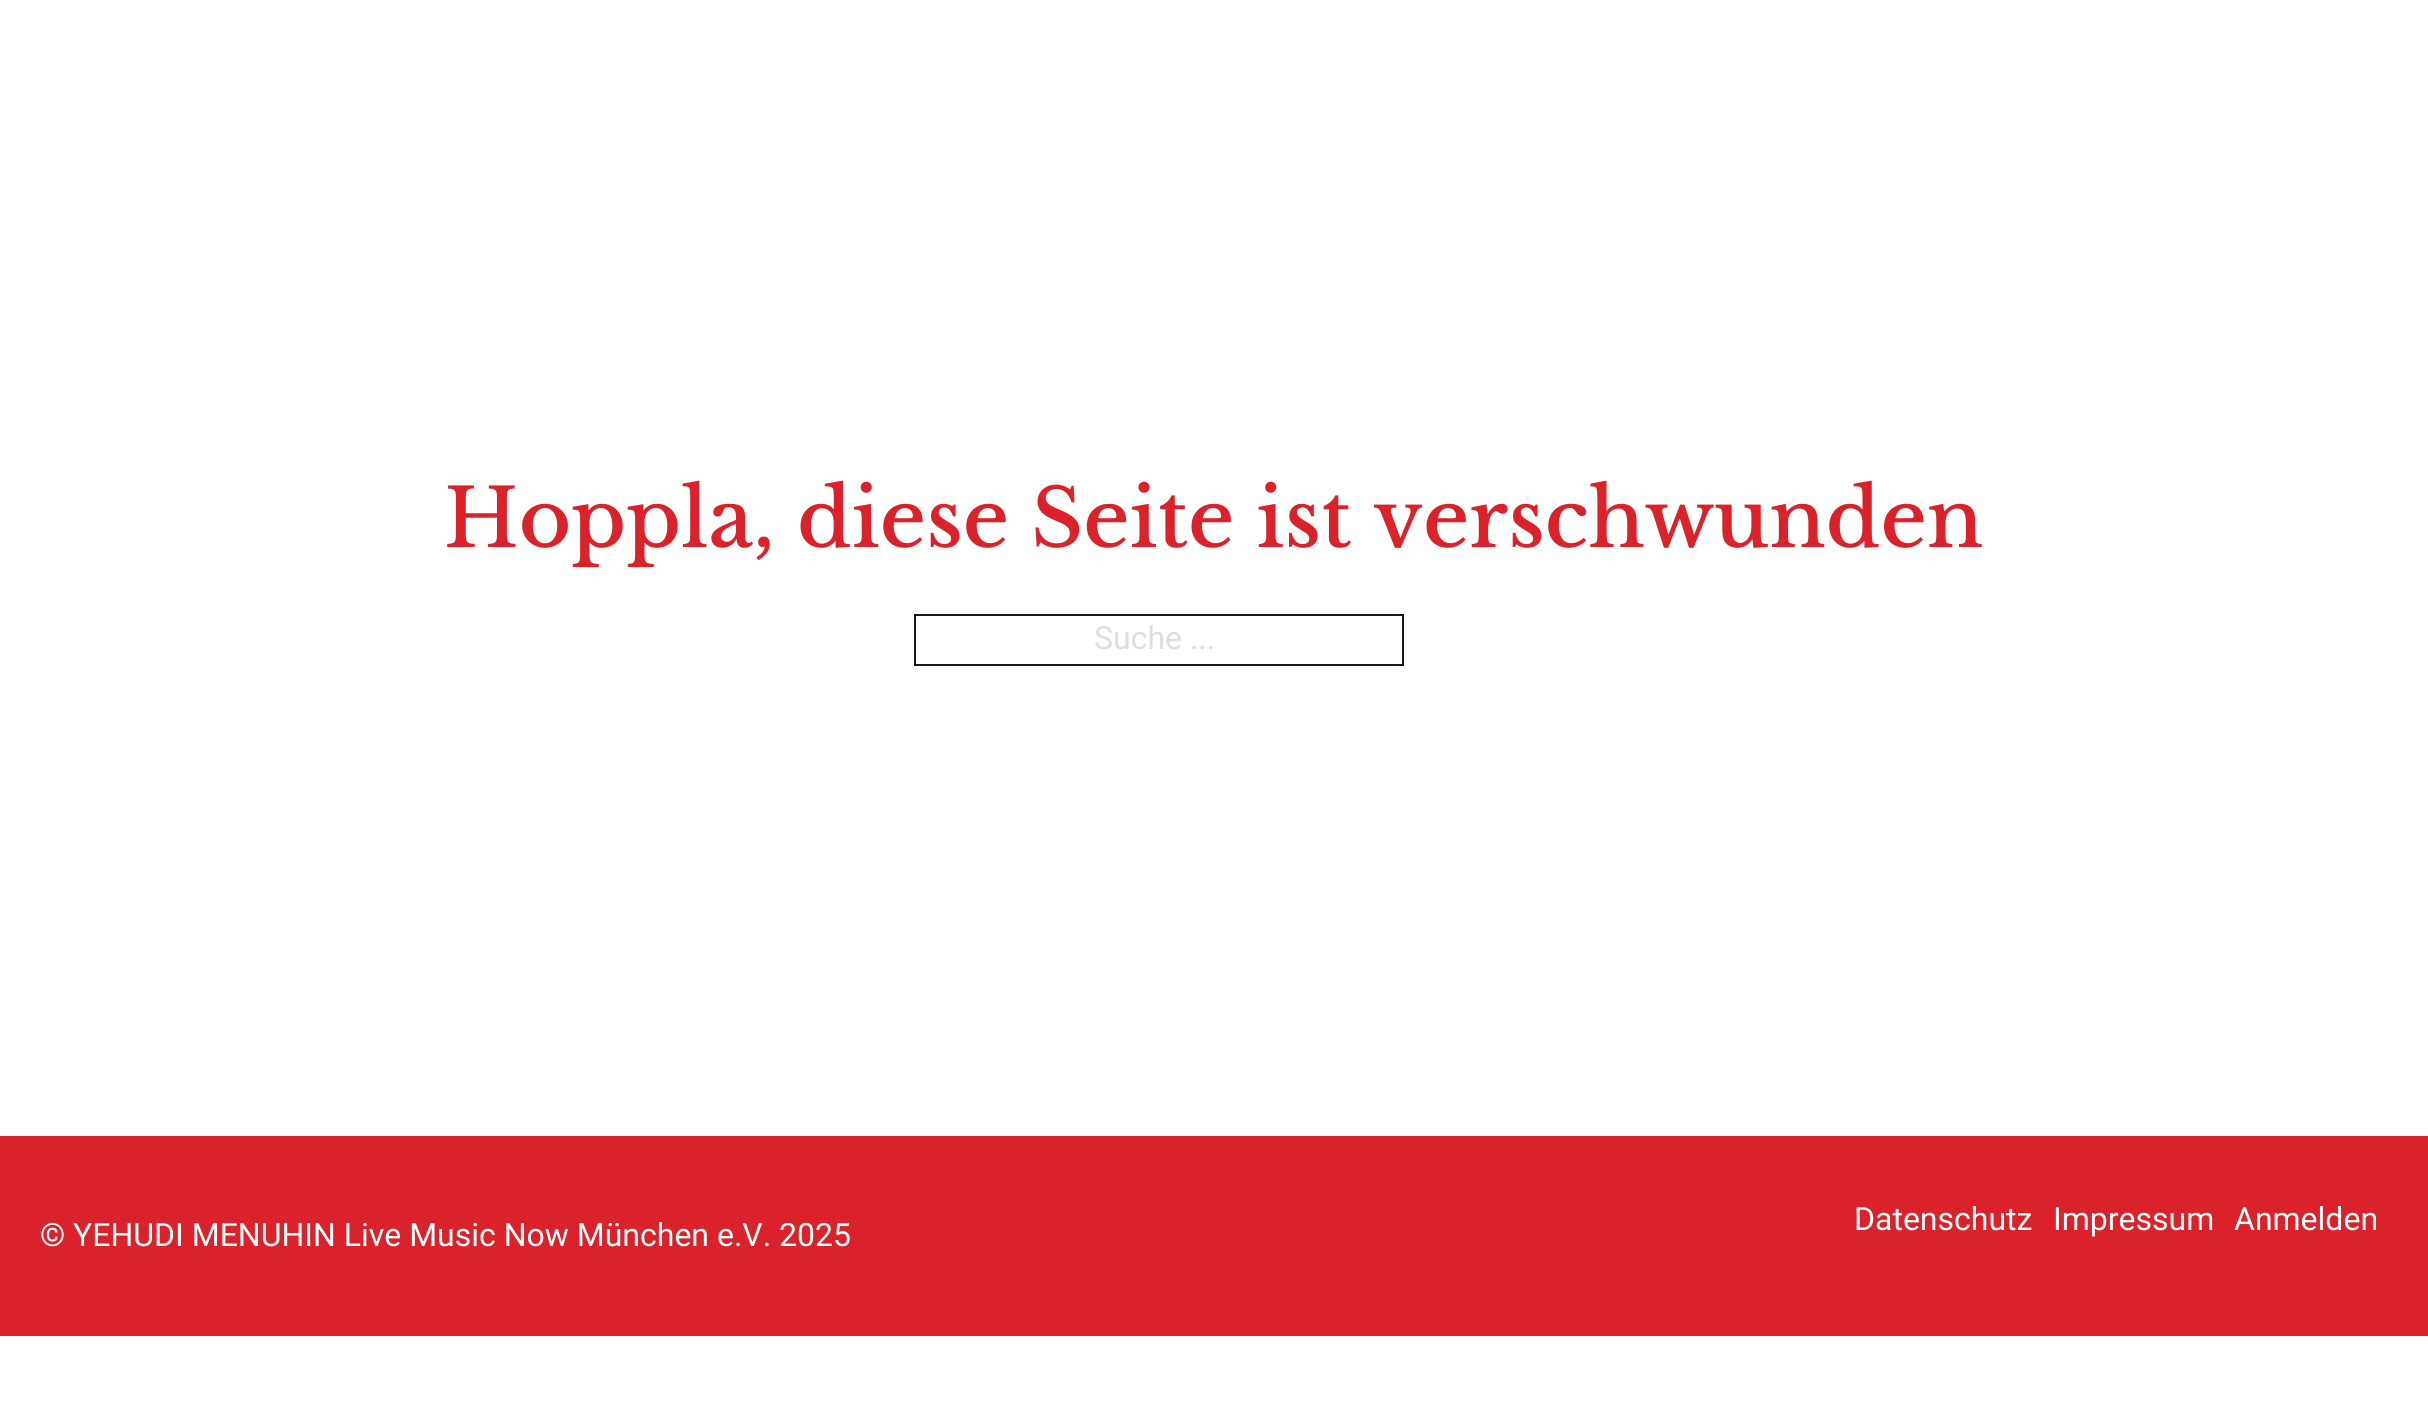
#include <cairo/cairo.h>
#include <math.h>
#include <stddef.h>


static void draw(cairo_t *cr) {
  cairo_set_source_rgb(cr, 1, 1, 1);
  cairo_paint(cr);
  cairo_rectangle(cr, 915, 615, 488, 50);
  cairo_set_source_rgb(cr, 28 / 255.0, 24 / 255.0, 25 / 255.0);
  cairo_stroke(cr);
  cairo_set_source_rgb(cr, 217 / 255.0, 34 / 255.0, 41 / 255.0);
  cairo_rectangle(cr, 0, 1136, 2428, 200);
  cairo_fill(cr);
  cairo_select_font_face(cr, "Libre Baskerville Medium", CAIRO_FONT_SLANT_NORMAL, CAIRO_FONT_WEIGHT_NORMAL);
  cairo_set_font_size(cr, 80);
  cairo_move_to(cr, 444, 547);
  cairo_show_text(cr, "Hoppla, diese Seite ist verschwunden");
  cairo_select_font_face(cr, "Roboto", CAIRO_FONT_SLANT_NORMAL, CAIRO_FONT_WEIGHT_NORMAL);
  cairo_set_font_size(cr, 32);
  cairo_set_source_rgb(cr, 221 / 255.0, 222 / 255.0, 223 / 255.0);
  cairo_move_to(cr, 1094, 649);
  cairo_show_text(cr, "Suche ...");
  cairo_set_source_rgb(cr, 1, 1, 1);
  cairo_move_to(cr, 40, 1246);
  cairo_show_text(cr, "© YEHUDI MENUHIN Live Music Now München e.V. 2025");
  cairo_move_to(cr, 1854, 1230);
  cairo_show_text(cr, "Datenschutz");
  cairo_move_to(cr, 2053, 1230);
  cairo_show_text(cr, "Impressum");
  cairo_move_to(cr, 2234, 1230);
  cairo_show_text(cr, "Anmelden");
}

int main(void) {
  cairo_surface_t *surface = cairo_image_surface_create(CAIRO_FORMAT_RGB24, 2428, 1420);
  cairo_t *cr = cairo_create(surface);
  cairo_font_options_t *options = cairo_font_options_create();
  cairo_font_options_set_hint_metrics(options, CAIRO_HINT_METRICS_OFF);
  cairo_font_options_set_hint_style(options, CAIRO_HINT_STYLE_NONE);
  cairo_set_font_options(cr, options);
  cairo_set_miter_limit(cr, 4);
  draw(cr);
  cairo_surface_write_to_png(surface, "out.png");
  cairo_font_options_destroy(options);
  cairo_destroy(cr);
  cairo_surface_destroy(surface);
  return 0;
}
